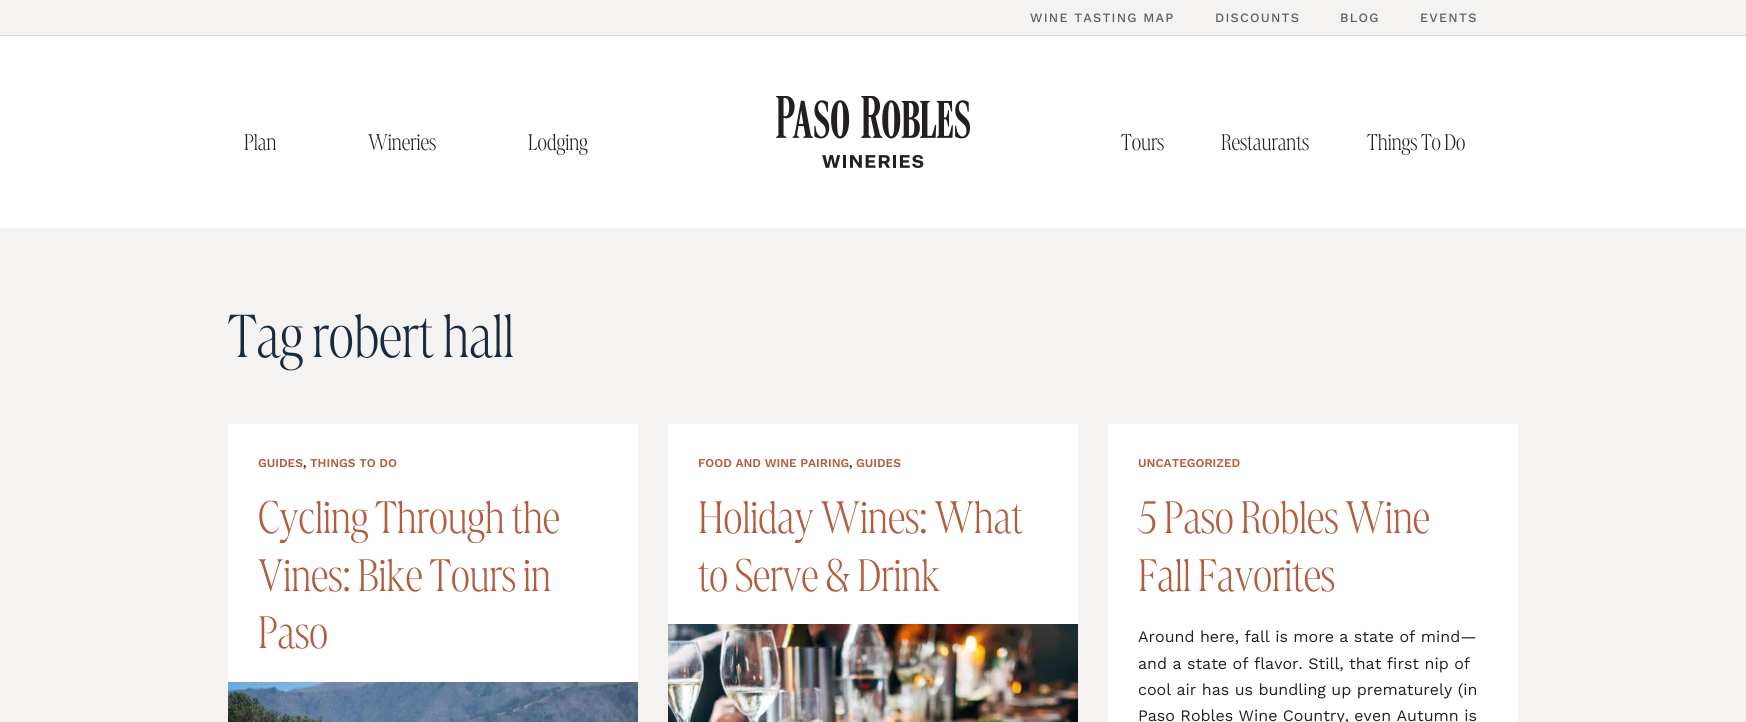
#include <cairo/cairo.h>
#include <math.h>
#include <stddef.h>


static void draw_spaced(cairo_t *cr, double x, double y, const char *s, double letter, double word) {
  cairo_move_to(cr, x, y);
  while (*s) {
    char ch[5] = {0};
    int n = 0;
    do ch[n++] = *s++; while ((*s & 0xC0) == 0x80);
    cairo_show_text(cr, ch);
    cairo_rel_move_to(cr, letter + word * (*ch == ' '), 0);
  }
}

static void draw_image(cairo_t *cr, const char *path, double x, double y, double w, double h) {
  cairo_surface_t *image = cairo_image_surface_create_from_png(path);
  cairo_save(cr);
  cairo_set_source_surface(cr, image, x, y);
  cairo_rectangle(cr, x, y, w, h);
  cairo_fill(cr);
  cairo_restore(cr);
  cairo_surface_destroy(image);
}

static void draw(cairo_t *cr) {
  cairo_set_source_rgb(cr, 244 / 255.0, 243 / 255.0, 242 / 255.0);
  cairo_paint(cr);
  cairo_set_source_rgb(cr, 216 / 255.0, 216 / 255.0, 215 / 255.0);
  cairo_rectangle(cr, 0, 35, 1746, 1);
  cairo_fill(cr);
  cairo_set_source_rgb(cr, 1, 1, 1);
  cairo_rectangle(cr, 0, 36, 1746, 192);
  cairo_fill(cr);
  draw_image(cr, "images/1.png", 776, 96, 194, 72);
  cairo_rectangle(cr, 228, 424, 410, 258);
  cairo_fill(cr);
  draw_image(cr, "images/2.png", 228, 682, 410, 40);
  cairo_rectangle(cr, 668, 424, 410, 200);
  cairo_fill(cr);
  draw_image(cr, "images/3.png", 668, 624, 410, 98);
  cairo_rectangle(cr, 1108, 424, 410, 298);
  cairo_fill(cr);
  cairo_select_font_face(cr, "Work Sans Medium", CAIRO_FONT_SLANT_NORMAL, CAIRO_FONT_WEIGHT_NORMAL);
  cairo_set_font_size(cr, 12.75);
  cairo_set_source_rgb(cr, 87 / 255.0, 96 / 255.0, 98 / 255.0);
  draw_spaced(cr, 1030, 22, "WINE TASTING MAP", 1.25, 0);
  draw_spaced(cr, 1215, 22, "DISCOUNTS", 1.25, 0);
  draw_spaced(cr, 1340, 22, "BLOG", 1.25, 0);
  draw_spaced(cr, 1420, 22, "EVENTS", 1.25, 0);
  cairo_select_font_face(cr, "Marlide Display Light", CAIRO_FONT_SLANT_NORMAL, CAIRO_FONT_WEIGHT_NORMAL);
  cairo_set_font_size(cr, 24);
  cairo_set_source_rgb(cr, 35 / 255.0, 31 / 255.0, 32 / 255.0);
  cairo_move_to(cr, 244, 150);
  cairo_show_text(cr, "Plan");
  cairo_move_to(cr, 368, 150);
  cairo_show_text(cr, "Wineries");
  cairo_move_to(cr, 528, 150);
  cairo_show_text(cr, "Lodging");
  cairo_move_to(cr, 1121, 150);
  cairo_show_text(cr, "Tours");
  cairo_move_to(cr, 1221, 150);
  cairo_show_text(cr, "Restaurants");
  cairo_move_to(cr, 1367, 150);
  cairo_show_text(cr, "Things To Do");
  cairo_set_font_size(cr, 64);
  cairo_set_source_rgb(cr, 25 / 255.0, 42 / 255.0, 61 / 255.0);
  cairo_move_to(cr, 228, 357);
  cairo_show_text(cr, "Tag robert hall");
  cairo_select_font_face(cr, "Work Sans SemiBold", CAIRO_FONT_SLANT_NORMAL, CAIRO_FONT_WEIGHT_NORMAL);
  cairo_set_font_size(cr, 12);
  cairo_set_source_rgb(cr, 178 / 255.0, 93 / 255.0, 64 / 255.0);
  cairo_move_to(cr, 258, 467);
  cairo_show_text(cr, "GUIDES");
  cairo_set_source_rgb(cr, 35 / 255.0, 31 / 255.0, 32 / 255.0);
  cairo_move_to(cr, 303, 467);
  cairo_show_text(cr, ",");
  cairo_set_source_rgb(cr, 178 / 255.0, 93 / 255.0, 64 / 255.0);
  cairo_move_to(cr, 310, 467);
  cairo_show_text(cr, "THINGS TO DO");
  cairo_select_font_face(cr, "Marlide Display Light", CAIRO_FONT_SLANT_NORMAL, CAIRO_FONT_WEIGHT_NORMAL);
  cairo_set_font_size(cr, 48);
  cairo_move_to(cr, 258, 533);
  cairo_show_text(cr, "Cycling Through the");
  cairo_move_to(cr, 258, 591);
  cairo_show_text(cr, "Vines: Bike Tours in");
  cairo_move_to(cr, 258, 648);
  cairo_show_text(cr, "Paso");
  cairo_select_font_face(cr, "Work Sans SemiBold", CAIRO_FONT_SLANT_NORMAL, CAIRO_FONT_WEIGHT_NORMAL);
  cairo_set_font_size(cr, 12);
  cairo_move_to(cr, 698, 467);
  cairo_show_text(cr, "FOOD AND WINE PAIRING");
  cairo_set_source_rgb(cr, 35 / 255.0, 31 / 255.0, 32 / 255.0);
  cairo_move_to(cr, 849, 467);
  cairo_show_text(cr, ",");
  cairo_set_source_rgb(cr, 178 / 255.0, 93 / 255.0, 64 / 255.0);
  cairo_move_to(cr, 856, 467);
  cairo_show_text(cr, "GUIDES");
  cairo_select_font_face(cr, "Marlide Display Light", CAIRO_FONT_SLANT_NORMAL, CAIRO_FONT_WEIGHT_NORMAL);
  cairo_set_font_size(cr, 48);
  cairo_move_to(cr, 698, 533);
  cairo_show_text(cr, "Holiday Wines: What");
  cairo_move_to(cr, 698, 591);
  cairo_show_text(cr, "to Serve & Drink");
  cairo_select_font_face(cr, "Work Sans SemiBold", CAIRO_FONT_SLANT_NORMAL, CAIRO_FONT_WEIGHT_NORMAL);
  cairo_set_font_size(cr, 12);
  cairo_move_to(cr, 1138, 467);
  cairo_show_text(cr, "UNCATEGORIZED");
  cairo_select_font_face(cr, "Marlide Display Light", CAIRO_FONT_SLANT_NORMAL, CAIRO_FONT_WEIGHT_NORMAL);
  cairo_set_font_size(cr, 48);
  cairo_move_to(cr, 1138, 533);
  cairo_show_text(cr, "5 Paso Robles Wine");
  cairo_move_to(cr, 1138, 591);
  cairo_show_text(cr, "Fall Favorites");
  cairo_select_font_face(cr, "Work Sans", CAIRO_FONT_SLANT_NORMAL, CAIRO_FONT_WEIGHT_NORMAL);
  cairo_set_font_size(cr, 16);
  cairo_set_source_rgb(cr, 35 / 255.0, 31 / 255.0, 32 / 255.0);
  cairo_move_to(cr, 1138, 642);
  cairo_show_text(cr, "Around here, fall is more a state of mind—");
  cairo_move_to(cr, 1138, 669);
  cairo_show_text(cr, "and a state of flavor. Still, that first nip of");
  cairo_move_to(cr, 1138, 695);
  cairo_show_text(cr, "cool air has us bundling up prematurely (in");
  cairo_move_to(cr, 1138, 721);
  cairo_show_text(cr, "Paso Robles Wine Country, even Autumn is");
}

int main(void) {
  cairo_surface_t *surface = cairo_image_surface_create(CAIRO_FORMAT_RGB24, 1746, 722);
  cairo_t *cr = cairo_create(surface);
  cairo_font_options_t *options = cairo_font_options_create();
  cairo_font_options_set_hint_metrics(options, CAIRO_HINT_METRICS_OFF);
  cairo_font_options_set_hint_style(options, CAIRO_HINT_STYLE_NONE);
  cairo_set_font_options(cr, options);
  cairo_set_miter_limit(cr, 4);
  draw(cr);
  cairo_surface_write_to_png(surface, "out.png");
  cairo_font_options_destroy(options);
  cairo_destroy(cr);
  cairo_surface_destroy(surface);
  return 0;
}
